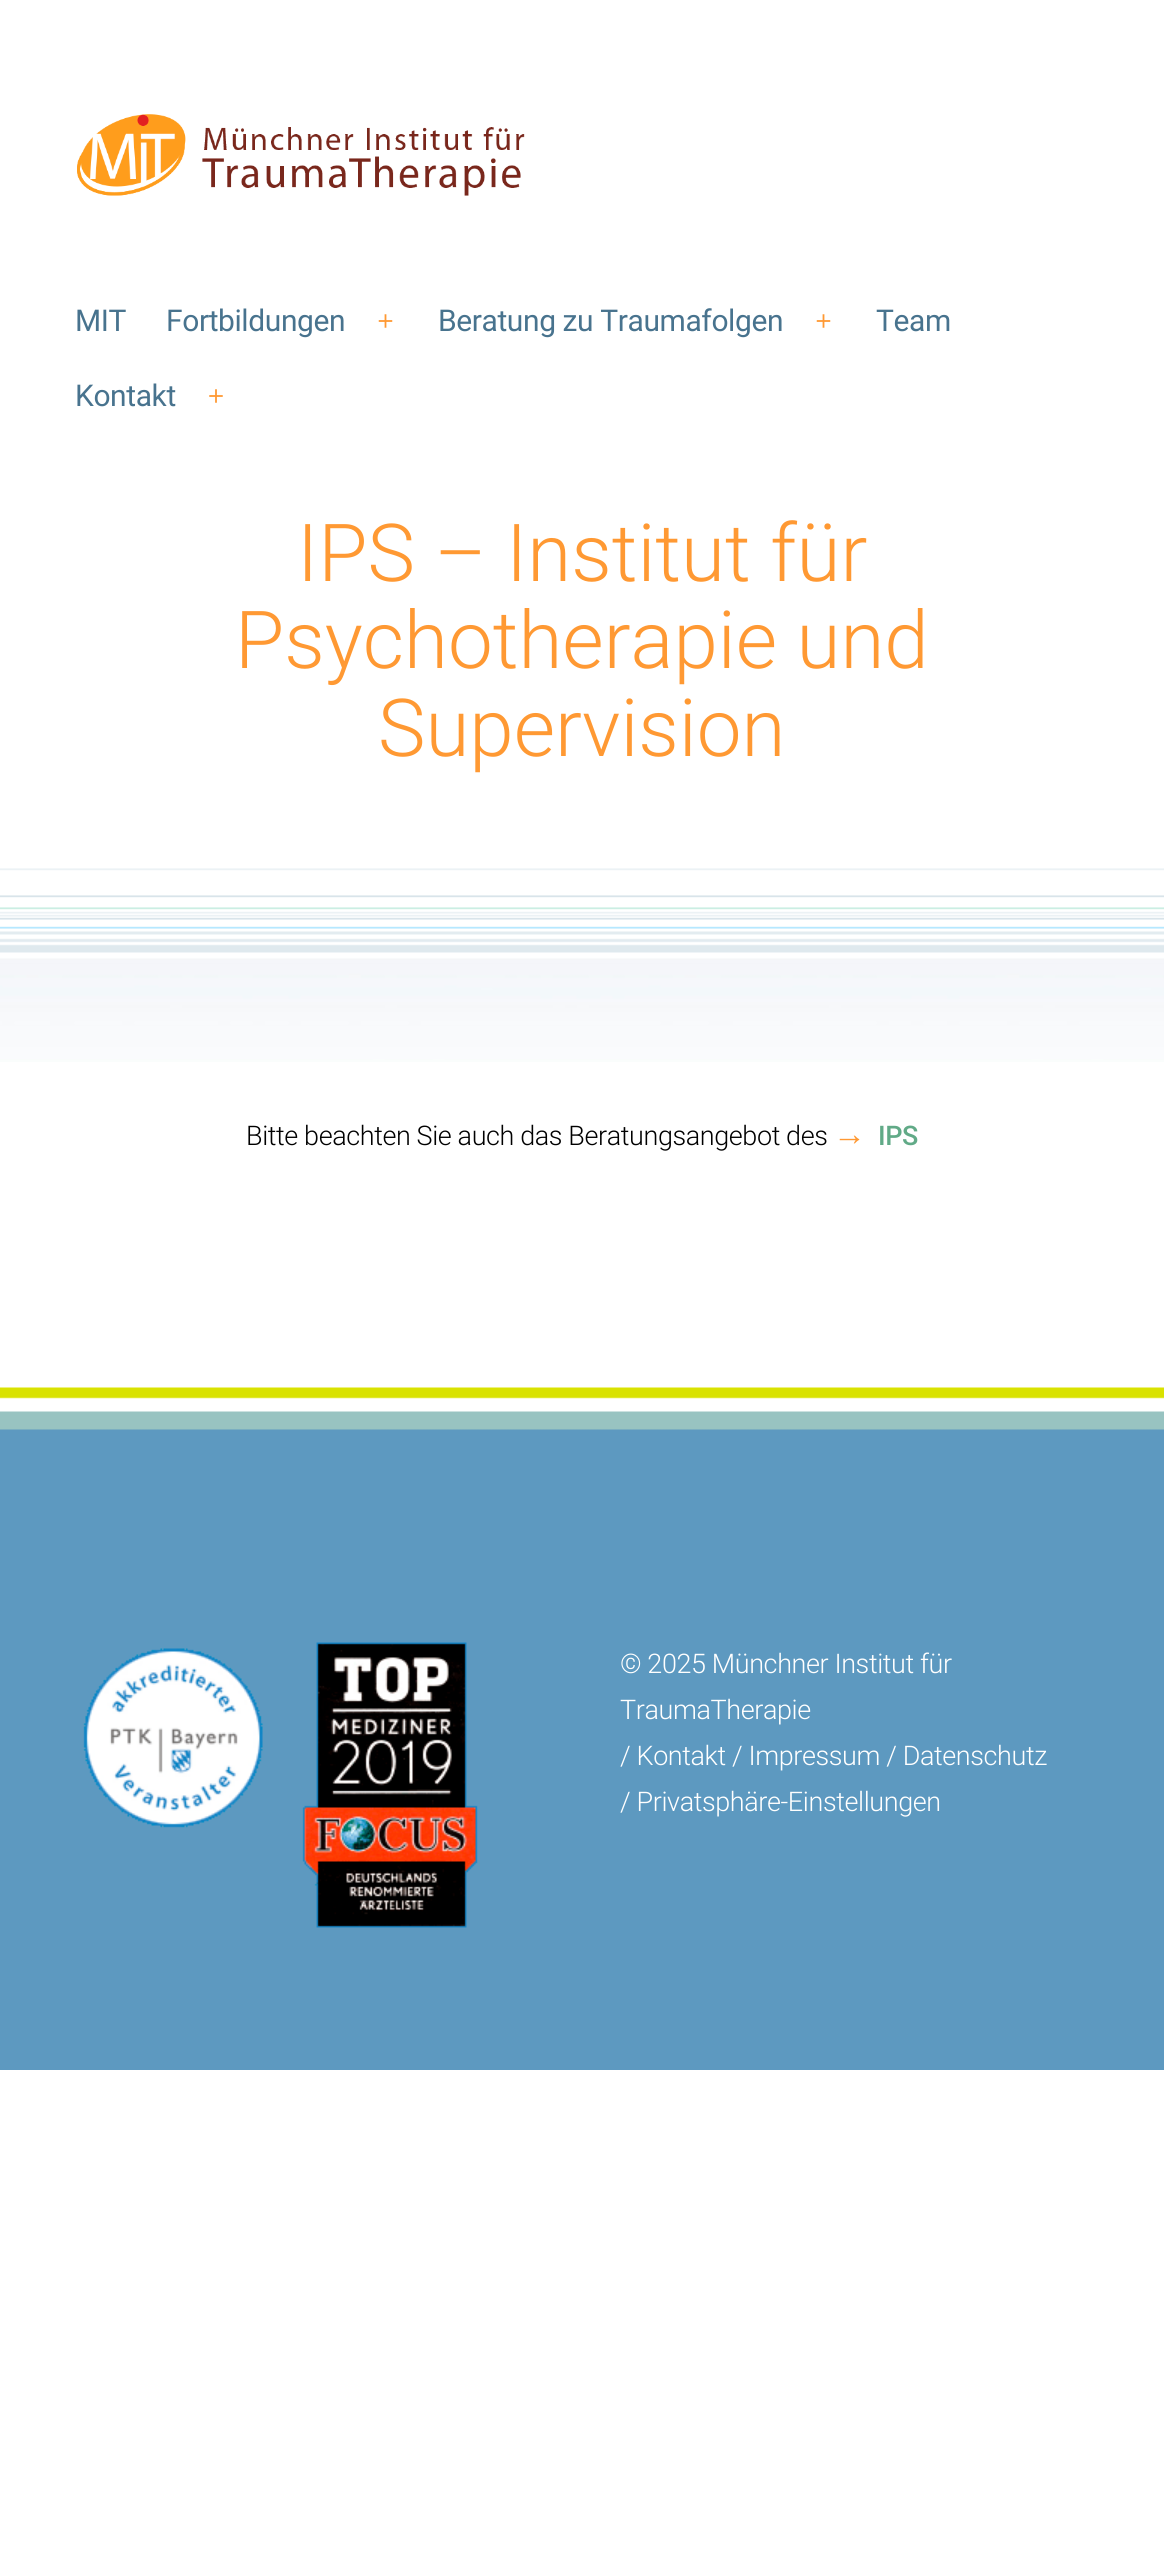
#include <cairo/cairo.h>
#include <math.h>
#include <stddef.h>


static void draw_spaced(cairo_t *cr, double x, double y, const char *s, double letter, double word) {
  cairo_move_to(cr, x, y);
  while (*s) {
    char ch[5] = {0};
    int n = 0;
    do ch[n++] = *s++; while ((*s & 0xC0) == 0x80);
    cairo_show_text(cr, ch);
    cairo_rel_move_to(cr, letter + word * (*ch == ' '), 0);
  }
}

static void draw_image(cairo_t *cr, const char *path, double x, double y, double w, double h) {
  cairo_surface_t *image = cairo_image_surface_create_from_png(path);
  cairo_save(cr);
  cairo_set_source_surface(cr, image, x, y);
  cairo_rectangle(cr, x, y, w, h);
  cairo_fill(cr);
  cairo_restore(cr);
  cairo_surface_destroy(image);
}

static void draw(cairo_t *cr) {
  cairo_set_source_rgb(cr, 1, 1, 1);
  cairo_paint(cr);
  draw_image(cr, "images/1.png", 0, 1387, 1164, 683);
  draw_image(cr, "images/2.png", 77, 114, 448, 82);
  draw_image(cr, "images/3.png", 378, 314, 15, 14);
  draw_image(cr, "images/3.png", 816, 314, 15, 14);
  draw_image(cr, "images/4.png", 209, 389, 14, 14);
  draw_image(cr, "images/5.png", 0, 868, 1164, 194);
  draw_image(cr, "images/6.png", 83, 1648, 180, 180);
  draw_image(cr, "images/7.png", 302, 1642, 176, 286);
  cairo_select_font_face(cr, "Roboto", CAIRO_FONT_SLANT_NORMAL, CAIRO_FONT_WEIGHT_NORMAL);
  cairo_set_font_size(cr, 30);
  cairo_set_source_rgb(cr, 72 / 255.0, 115 / 255.0, 142 / 255.0);
  draw_spaced(cr, 75, 331, "MIT", -0.4, 0);
  draw_spaced(cr, 166, 331, "Fortbildungen", -0.4, 0);
  draw_spaced(cr, 438, 331, "Beratung zu Traumafolgen", -0.4, 0);
  draw_spaced(cr, 876, 331, "Team", -0.4, 0);
  draw_spaced(cr, 75, 406, "Kontakt", -0.4, 0);
  cairo_select_font_face(cr, "Roboto Light", CAIRO_FONT_SLANT_NORMAL, CAIRO_FONT_WEIGHT_NORMAL);
  cairo_set_font_size(cr, 80);
  cairo_set_source_rgb(cr, 1, 153 / 255.0, 51 / 255.0);
  cairo_move_to(cr, 297, 581);
  cairo_show_text(cr, "IPS – Institut für");
  cairo_move_to(cr, 235, 668);
  cairo_show_text(cr, "Psychotherapie und");
  cairo_move_to(cr, 378, 756);
  cairo_show_text(cr, "Supervision");
  cairo_set_font_size(cr, 27);
  cairo_set_source_rgb(cr, 0, 0, 0);
  draw_spaced(cr, 246, 1145, "Bitte beachten Sie auch das Beratungsangebot des", -0.4, 0);
  cairo_select_font_face(cr, "Liberation Sans", CAIRO_FONT_SLANT_NORMAL, CAIRO_FONT_WEIGHT_BOLD);
  cairo_set_font_size(cr, 33);
  cairo_set_source_rgb(cr, 1, 153 / 255.0, 51 / 255.0);
  draw_spaced(cr, 833, 1145, "→", -0.4, 0);
  cairo_select_font_face(cr, "Roboto Medium", CAIRO_FONT_SLANT_NORMAL, CAIRO_FONT_WEIGHT_NORMAL);
  cairo_set_font_size(cr, 27);
  cairo_set_source_rgb(cr, 97 / 255.0, 170 / 255.0, 135 / 255.0);
  draw_spaced(cr, 878, 1145, "IPS", -0.4, 0);
  cairo_select_font_face(cr, "Roboto Light", CAIRO_FONT_SLANT_NORMAL, CAIRO_FONT_WEIGHT_NORMAL);
  cairo_set_source_rgb(cr, 1, 1, 1);
  draw_spaced(cr, 620, 1673, "© 2025 Münchner Institut für", -0.4, 0);
  draw_spaced(cr, 620, 1719, "TraumaTherapie", -0.4, 0);
  draw_spaced(cr, 620, 1765, "/ Kontakt / Impressum / Datenschutz", -0.4, 0);
  draw_spaced(cr, 620, 1811, "/ Privatsphäre-Einstellungen", -0.4, 0);
}

int main(void) {
  cairo_surface_t *surface = cairo_image_surface_create(CAIRO_FORMAT_RGB24, 1164, 2564);
  cairo_t *cr = cairo_create(surface);
  cairo_font_options_t *options = cairo_font_options_create();
  cairo_font_options_set_hint_metrics(options, CAIRO_HINT_METRICS_OFF);
  cairo_font_options_set_hint_style(options, CAIRO_HINT_STYLE_NONE);
  cairo_set_font_options(cr, options);
  cairo_set_miter_limit(cr, 4);
  draw(cr);
  cairo_surface_write_to_png(surface, "out.png");
  cairo_font_options_destroy(options);
  cairo_destroy(cr);
  cairo_surface_destroy(surface);
  return 0;
}
